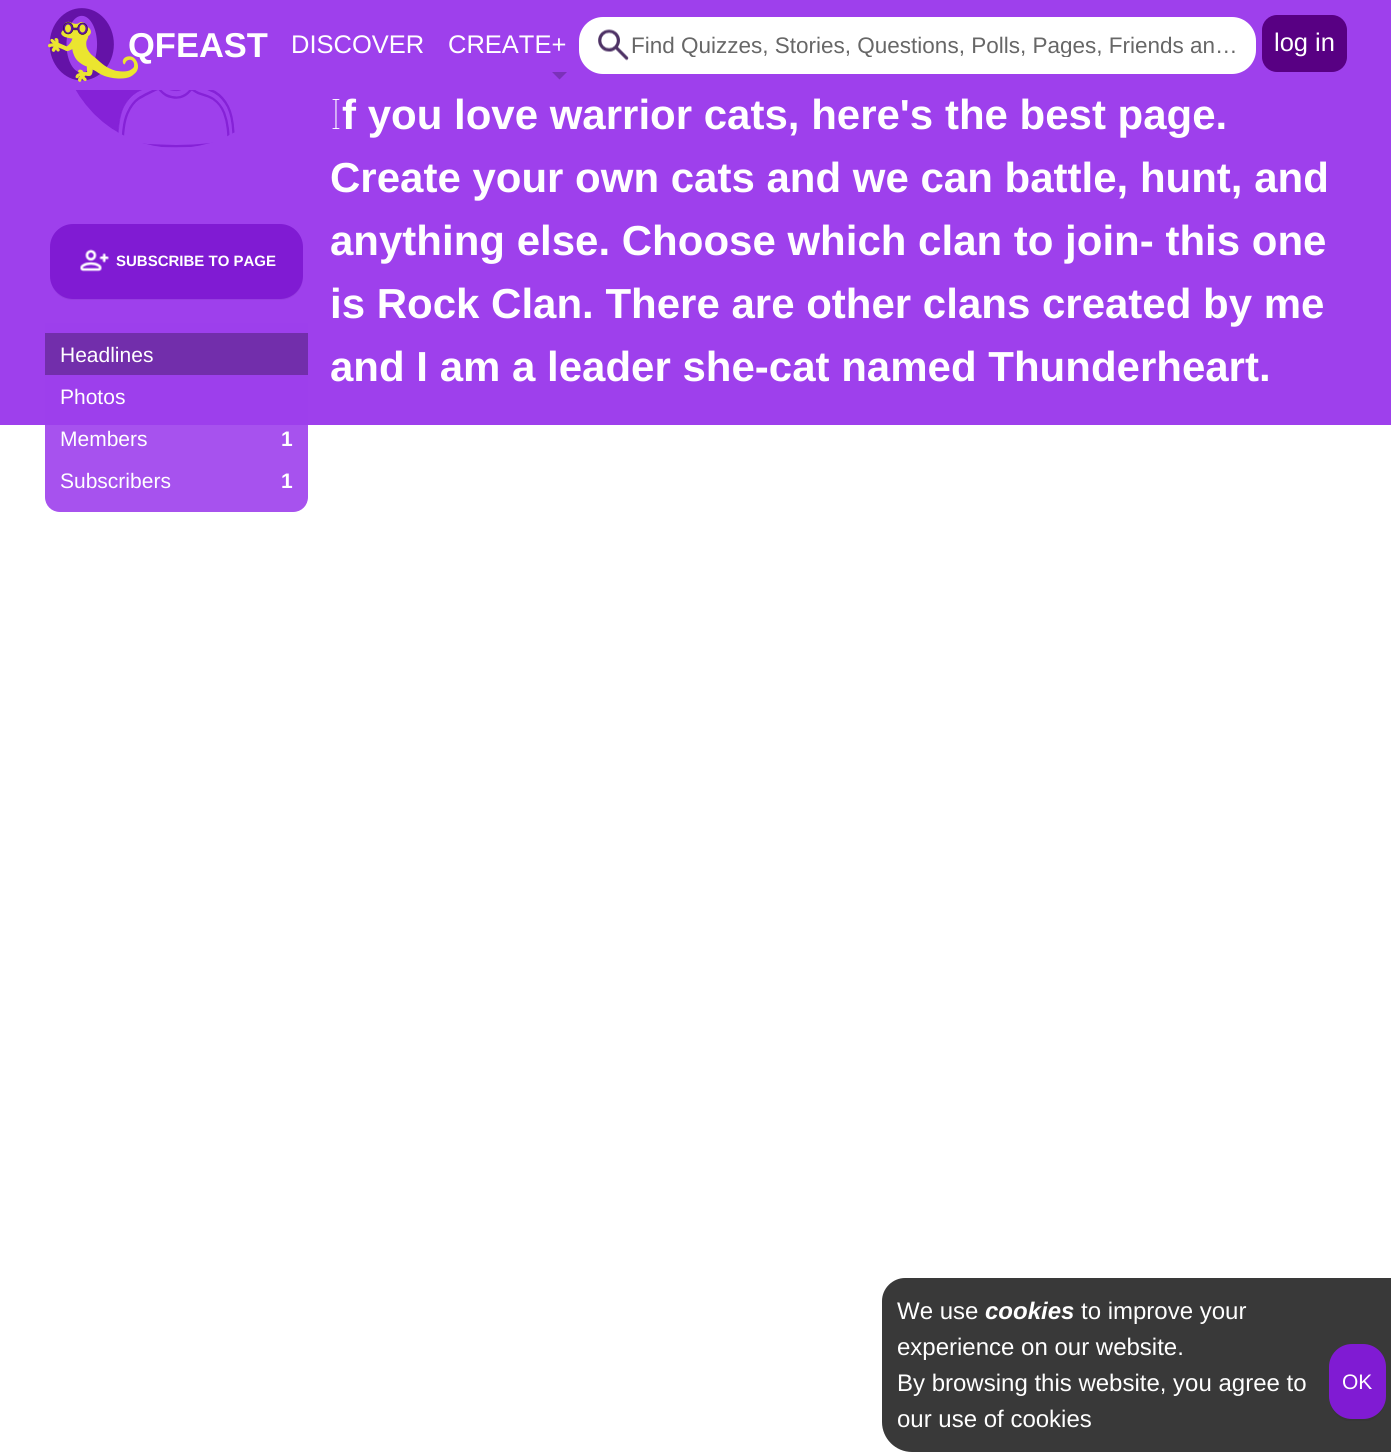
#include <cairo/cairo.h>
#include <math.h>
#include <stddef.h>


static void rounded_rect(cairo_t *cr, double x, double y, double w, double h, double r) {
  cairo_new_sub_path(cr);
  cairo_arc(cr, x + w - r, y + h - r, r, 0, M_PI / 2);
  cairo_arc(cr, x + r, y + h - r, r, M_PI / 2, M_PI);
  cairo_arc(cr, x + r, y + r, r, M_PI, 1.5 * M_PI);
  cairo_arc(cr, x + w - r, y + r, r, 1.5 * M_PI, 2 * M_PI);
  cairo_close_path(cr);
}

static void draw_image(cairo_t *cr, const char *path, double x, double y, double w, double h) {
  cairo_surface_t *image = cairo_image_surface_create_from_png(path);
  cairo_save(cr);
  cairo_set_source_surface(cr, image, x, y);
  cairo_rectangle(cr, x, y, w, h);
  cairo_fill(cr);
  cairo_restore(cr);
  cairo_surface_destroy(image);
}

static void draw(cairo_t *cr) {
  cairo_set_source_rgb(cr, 1, 1, 1);
  cairo_paint(cr);
  cairo_set_source_rgb(cr, 158 / 255.0, 64 / 255.0, 236 / 255.0);
  cairo_rectangle(cr, 0, 0, 1391, 425);
  cairo_fill(cr);
  draw_image(cr, "images/1.png", 48, 8, 90, 74);
  cairo_set_source_rgb(cr, 123 / 255.0, 49 / 255.0, 185 / 255.0);
  cairo_new_path(cr);
  cairo_move_to(cr, 552, 72);
  cairo_line_to(cr, 567, 72);
  cairo_line_to(cr, 559.5, 79.5);
  cairo_close_path(cr);
  cairo_fill(cr);
  cairo_set_source_rgb(cr, 1, 1, 1);
  rounded_rect(cr, 579, 17, 677, 57, 24);
  cairo_fill(cr);
  draw_image(cr, "images/2.png", 598, 29, 31, 32);
  cairo_set_source_rgb(cr, 88 / 255.0, 0, 131 / 255.0);
  rounded_rect(cr, 1262, 15, 85, 57, 15);
  cairo_fill(cr);
  draw_image(cr, "images/3.png", 75, 90, 160, 58);
  cairo_set_source_rgb(cr, 150 / 255.0, 61 / 255.0, 224 / 255.0);
  cairo_new_path(cr);
  cairo_move_to(cr, 52, 286);
  cairo_curve_to(cr, 55, 294, 63, 300, 73, 300);
  cairo_line_to(cr, 280, 300);
  cairo_curve_to(cr, 293, 300, 303, 290, 303, 277);
  cairo_line_to(cr, 303, 276);
  cairo_curve_to(cr, 303, 288, 293, 298, 280, 298);
  cairo_line_to(cr, 72, 298);
  cairo_curve_to(cr, 63, 298, 55, 293, 52, 286);
  cairo_close_path(cr);
  cairo_fill(cr);
  cairo_set_source_rgb(cr, 128 / 255.0, 27 / 255.0, 211 / 255.0);
  rounded_rect(cr, 50, 224, 253, 75, 23);
  cairo_fill(cr);
  draw_image(cr, "images/4.png", 80, 249, 29, 23);
  cairo_set_source_rgba(cr, 158 / 255.0, 64 / 255.0, 236 / 255.0, 0.9);
  cairo_new_path(cr);
  cairo_move_to(cr, 45, 323);
  cairo_line_to(cr, 308, 323);
  cairo_line_to(cr, 308, 497);
  cairo_curve_to(cr, 308, 505.5, 301.5, 512, 293, 512);
  cairo_line_to(cr, 60, 512);
  cairo_curve_to(cr, 51.5, 512, 45, 505.5, 45, 497);
  cairo_close_path(cr);
  cairo_fill(cr);
  cairo_set_source_rgb(cr, 114 / 255.0, 46 / 255.0, 171 / 255.0);
  cairo_rectangle(cr, 45, 333, 263, 42);
  cairo_fill(cr);
  cairo_set_source_rgb(cr, 57 / 255.0, 57 / 255.0, 57 / 255.0);
  cairo_new_path(cr);
  cairo_move_to(cr, 905, 1278);
  cairo_line_to(cr, 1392, 1278);
  cairo_line_to(cr, 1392, 1452);
  cairo_line_to(cr, 912, 1452);
  cairo_curve_to(cr, 895.5, 1452, 882, 1438.5, 882, 1422);
  cairo_line_to(cr, 882, 1301);
  cairo_curve_to(cr, 882, 1288.5, 892.5, 1278, 905, 1278);
  cairo_close_path(cr);
  cairo_fill(cr);
  cairo_set_source_rgb(cr, 54 / 255.0, 54 / 255.0, 54 / 255.0);
  cairo_new_path(cr);
  cairo_move_to(cr, 1329, 1396);
  cairo_curve_to(cr, 1329, 1408, 1336, 1418, 1347, 1421);
  cairo_line_to(cr, 1358, 1421);
  cairo_line_to(cr, 1368, 1421);
  cairo_curve_to(cr, 1379, 1418, 1386, 1408, 1386, 1396);
  cairo_curve_to(cr, 1386, 1409, 1376, 1419, 1364, 1419);
  cairo_line_to(cr, 1352, 1419);
  cairo_curve_to(cr, 1339, 1419, 1329, 1409, 1329, 1396);
  cairo_close_path(cr);
  cairo_fill(cr);
  cairo_set_source_rgb(cr, 128 / 255.0, 27 / 255.0, 211 / 255.0);
  rounded_rect(cr, 1330, 1345, 55, 73, 22);
  cairo_fill_preserve(cr);
  cairo_stroke(cr);
  cairo_select_font_face(cr, "Liberation Sans", CAIRO_FONT_SLANT_NORMAL, CAIRO_FONT_WEIGHT_BOLD);
  cairo_set_font_size(cr, 34.5);
  cairo_set_source_rgb(cr, 1, 1, 1);
  cairo_move_to(cr, 128, 57);
  cairo_show_text(cr, "QFEAST");
  cairo_select_font_face(cr, "Liberation Sans", CAIRO_FONT_SLANT_NORMAL, CAIRO_FONT_WEIGHT_NORMAL);
  cairo_set_font_size(cr, 25.5);
  cairo_move_to(cr, 291, 53);
  cairo_show_text(cr, "DISCOVER");
  cairo_move_to(cr, 448, 53);
  cairo_show_text(cr, "CREATE+");
  cairo_save(cr);
  cairo_rectangle(cr, 632, 32, 609, 25);
  cairo_clip(cr);
  cairo_set_font_size(cr, 22.5);
  cairo_set_source_rgb(cr, 103 / 255.0, 103 / 255.0, 103 / 255.0);
  cairo_move_to(cr, 631, 53);
  cairo_show_text(cr, "Find Quizzes, Stories, Questions, Polls, Pages, Friends an…");
  cairo_restore(cr);
  cairo_move_to(cr, 1274, 51);
  cairo_show_text(cr, "log in");
  cairo_select_font_face(cr, "Liberation Sans", CAIRO_FONT_SLANT_NORMAL, CAIRO_FONT_WEIGHT_BOLD);
  cairo_set_font_size(cr, 15);
  cairo_move_to(cr, 116, 266);
  cairo_show_text(cr, "SUBSCRIBE TO PAGE");
  cairo_select_font_face(cr, "Liberation Sans", CAIRO_FONT_SLANT_NORMAL, CAIRO_FONT_WEIGHT_NORMAL);
  cairo_set_font_size(cr, 21);
  cairo_move_to(cr, 60, 362);
  cairo_show_text(cr, "Headlines");
  cairo_move_to(cr, 60, 404);
  cairo_show_text(cr, "Photos");
  cairo_move_to(cr, 60, 446);
  cairo_show_text(cr, "Members");
  cairo_select_font_face(cr, "Liberation Sans", CAIRO_FONT_SLANT_NORMAL, CAIRO_FONT_WEIGHT_BOLD);
  cairo_move_to(cr, 281, 446);
  cairo_show_text(cr, "1");
  cairo_select_font_face(cr, "Liberation Sans", CAIRO_FONT_SLANT_NORMAL, CAIRO_FONT_WEIGHT_NORMAL);
  cairo_move_to(cr, 60, 488);
  cairo_show_text(cr, "Subscribers");
  cairo_select_font_face(cr, "Liberation Sans", CAIRO_FONT_SLANT_NORMAL, CAIRO_FONT_WEIGHT_BOLD);
  cairo_move_to(cr, 281, 488);
  cairo_show_text(cr, "1");
  cairo_select_font_face(cr, "Noto Sans Thin", CAIRO_FONT_SLANT_NORMAL, CAIRO_FONT_WEIGHT_NORMAL);
  cairo_set_font_size(cr, 42);
  cairo_move_to(cr, 330, 129);
  cairo_show_text(cr, "I");
  cairo_select_font_face(cr, "Liberation Sans", CAIRO_FONT_SLANT_NORMAL, CAIRO_FONT_WEIGHT_BOLD);
  cairo_move_to(cr, 342, 129);
  cairo_show_text(cr, "f you love warrior cats, here's the best page.");
  cairo_move_to(cr, 330, 192);
  cairo_show_text(cr, "Create your own cats and we can battle, hunt, and");
  cairo_move_to(cr, 330, 255);
  cairo_show_text(cr, "anything else. Choose which clan to join- this one");
  cairo_move_to(cr, 330, 318);
  cairo_show_text(cr, "is Rock Clan. There are other clans created by me");
  cairo_move_to(cr, 330, 381);
  cairo_show_text(cr, "and I am a leader she-cat named Thunderheart.");
  cairo_select_font_face(cr, "Liberation Sans", CAIRO_FONT_SLANT_NORMAL, CAIRO_FONT_WEIGHT_NORMAL);
  cairo_set_font_size(cr, 24);
  cairo_move_to(cr, 897, 1319);
  cairo_show_text(cr, "We use");
  cairo_select_font_face(cr, "Liberation Sans", CAIRO_FONT_SLANT_ITALIC, CAIRO_FONT_WEIGHT_BOLD);
  cairo_move_to(cr, 985, 1319);
  cairo_show_text(cr, "cookies");
  cairo_select_font_face(cr, "Liberation Sans", CAIRO_FONT_SLANT_NORMAL, CAIRO_FONT_WEIGHT_NORMAL);
  cairo_move_to(cr, 1081, 1319);
  cairo_show_text(cr, "to improve your");
  cairo_move_to(cr, 897, 1355);
  cairo_show_text(cr, "experience on our website.");
  cairo_move_to(cr, 897, 1391);
  cairo_show_text(cr, "By browsing this website, you agree to");
  cairo_move_to(cr, 897, 1427);
  cairo_show_text(cr, "our use of cookies");
  cairo_set_font_size(cr, 21);
  cairo_move_to(cr, 1342, 1389);
  cairo_show_text(cr, "OK");
}

int main(void) {
  cairo_surface_t *surface = cairo_image_surface_create(CAIRO_FORMAT_RGB24, 1391, 1453);
  cairo_t *cr = cairo_create(surface);
  cairo_font_options_t *options = cairo_font_options_create();
  cairo_font_options_set_hint_metrics(options, CAIRO_HINT_METRICS_OFF);
  cairo_font_options_set_hint_style(options, CAIRO_HINT_STYLE_NONE);
  cairo_set_font_options(cr, options);
  cairo_set_miter_limit(cr, 4);
  draw(cr);
  cairo_surface_write_to_png(surface, "out.png");
  cairo_font_options_destroy(options);
  cairo_destroy(cr);
  cairo_surface_destroy(surface);
  return 0;
}
